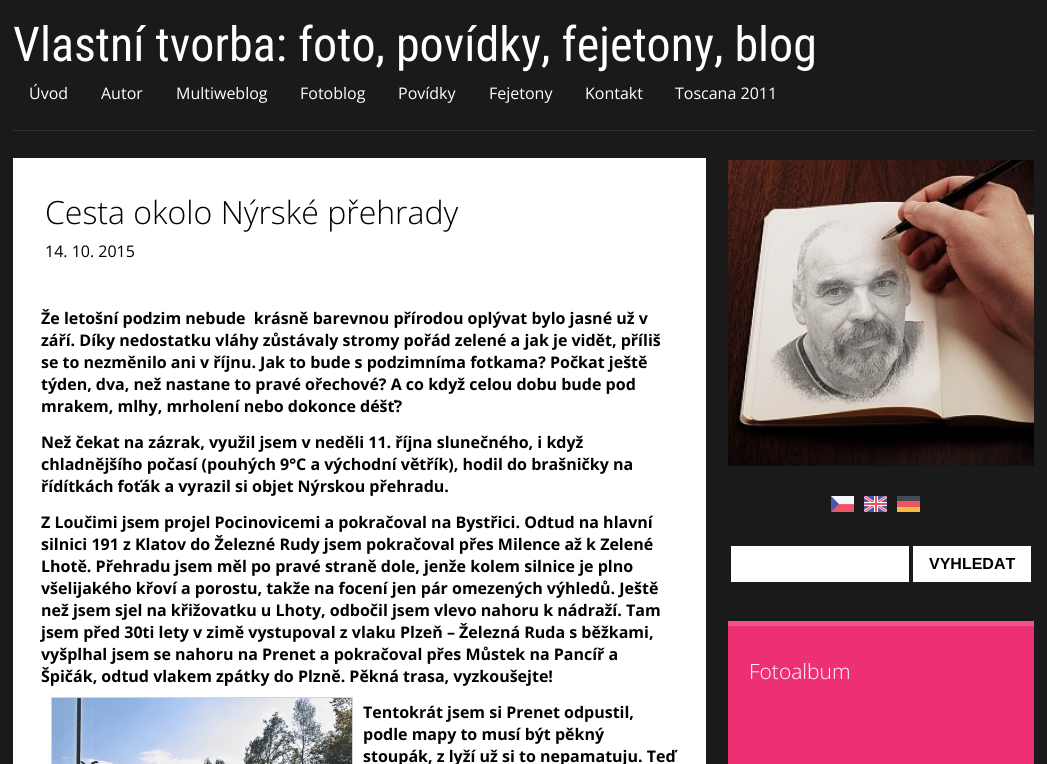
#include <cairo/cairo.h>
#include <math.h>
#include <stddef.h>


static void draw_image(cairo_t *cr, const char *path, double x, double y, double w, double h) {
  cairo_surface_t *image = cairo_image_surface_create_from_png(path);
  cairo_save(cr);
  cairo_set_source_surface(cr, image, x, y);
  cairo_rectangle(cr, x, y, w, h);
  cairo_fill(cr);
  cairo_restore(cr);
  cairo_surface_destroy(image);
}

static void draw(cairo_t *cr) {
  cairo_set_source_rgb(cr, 26 / 255.0, 26 / 255.0, 26 / 255.0);
  cairo_paint(cr);
  cairo_set_source_rgb(cr, 48 / 255.0, 48 / 255.0, 48 / 255.0);
  cairo_rectangle(cr, 13, 130, 1021, 1);
  cairo_fill(cr);
  cairo_set_source_rgb(cr, 1, 1, 1);
  cairo_rectangle(cr, 13, 158, 693, 606);
  cairo_fill(cr);
  cairo_rectangle(cr, 51.5, 697.5, 301, 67);
  cairo_set_source_rgb(cr, 211 / 255.0, 211 / 255.0, 211 / 255.0);
  cairo_set_line_width(cr, 1);
  cairo_stroke(cr);
  draw_image(cr, "images/1.png", 52, 698, 300, 66);
  draw_image(cr, "images/2.png", 728, 160, 306, 306);
  draw_image(cr, "images/3.png", 831, 496, 23, 16);
  draw_image(cr, "images/4.png", 864, 496, 23, 16);
  draw_image(cr, "images/5.png", 897, 496, 23, 16);
  cairo_set_source_rgb(cr, 1, 1, 1);
  cairo_rectangle(cr, 731, 546, 178, 36);
  cairo_fill(cr);
  cairo_rectangle(cr, 913, 546, 118, 36);
  cairo_fill(cr);
  cairo_set_source_rgb(cr, 237 / 255.0, 48 / 255.0, 116 / 255.0);
  cairo_rectangle(cr, 728, 626, 306, 138);
  cairo_fill(cr);
  cairo_set_source_rgb(cr, 240 / 255.0, 82 / 255.0, 139 / 255.0);
  cairo_rectangle(cr, 728, 621, 306, 5);
  cairo_fill(cr);
  cairo_select_font_face(cr, "Roboto Condensed", CAIRO_FONT_SLANT_NORMAL, CAIRO_FONT_WEIGHT_NORMAL);
  cairo_set_font_size(cr, 48);
  cairo_set_source_rgb(cr, 1, 1, 1);
  cairo_move_to(cr, 13, 61);
  cairo_show_text(cr, "Vlastní tvorba: foto, povídky, fejetony, blog");
  cairo_select_font_face(cr, "Open Sans", CAIRO_FONT_SLANT_NORMAL, CAIRO_FONT_WEIGHT_NORMAL);
  cairo_set_font_size(cr, 16);
  cairo_move_to(cr, 29, 99);
  cairo_show_text(cr, "Úvod");
  cairo_move_to(cr, 101, 99);
  cairo_show_text(cr, "Autor");
  cairo_move_to(cr, 176, 99);
  cairo_show_text(cr, "Multiweblog");
  cairo_move_to(cr, 300, 99);
  cairo_show_text(cr, "Fotoblog");
  cairo_move_to(cr, 398, 99);
  cairo_show_text(cr, "Povídky");
  cairo_move_to(cr, 489, 99);
  cairo_show_text(cr, "Fejetony");
  cairo_move_to(cr, 585, 99);
  cairo_show_text(cr, "Kontakt");
  cairo_move_to(cr, 675, 99);
  cairo_show_text(cr, "Toscana 2011");
  cairo_select_font_face(cr, "Open Sans Light", CAIRO_FONT_SLANT_NORMAL, CAIRO_FONT_WEIGHT_NORMAL);
  cairo_set_font_size(cr, 32);
  cairo_set_source_rgb(cr, 0, 0, 0);
  cairo_move_to(cr, 45, 224);
  cairo_show_text(cr, "Cesta okolo Nýrské přehrady");
  cairo_select_font_face(cr, "Open Sans", CAIRO_FONT_SLANT_NORMAL, CAIRO_FONT_WEIGHT_NORMAL);
  cairo_set_font_size(cr, 16);
  cairo_move_to(cr, 45, 257);
  cairo_show_text(cr, "14. 10. 2015");
  cairo_select_font_face(cr, "Open Sans", CAIRO_FONT_SLANT_NORMAL, CAIRO_FONT_WEIGHT_BOLD);
  cairo_move_to(cr, 41, 324);
  cairo_show_text(cr, "Že letošní podzim nebude  krásně barevnou přírodou oplývat bylo jasné už v");
  cairo_move_to(cr, 41, 346);
  cairo_show_text(cr, "září. Díky nedostatku vláhy zůstávaly stromy pořád zelené a jak je vidět, příliš");
  cairo_move_to(cr, 41, 368);
  cairo_show_text(cr, "se to nezměnilo ani v říjnu. Jak to bude s podzimníma fotkama? Počkat ještě");
  cairo_move_to(cr, 41, 390);
  cairo_show_text(cr, "týden, dva, než nastane to pravé ořechové? A co když celou dobu bude pod");
  cairo_move_to(cr, 41, 412);
  cairo_show_text(cr, "mrakem, mlhy, mrholení nebo dokonce déšť?");
  cairo_move_to(cr, 41, 448);
  cairo_show_text(cr, "Než čekat na zázrak, využil jsem v neděli 11. října slunečného, i když");
  cairo_move_to(cr, 41, 470);
  cairo_show_text(cr, "chladnějšího počasí (pouhých 9°C a východní větřík), hodil do brašničky na");
  cairo_move_to(cr, 41, 492);
  cairo_show_text(cr, "řídítkách foťák a vyrazil si objet Nýrskou přehradu.");
  cairo_move_to(cr, 41, 528);
  cairo_show_text(cr, "Z Loučimi jsem projel Pocinovicemi a pokračoval na Bystřici. Odtud na hlavní");
  cairo_move_to(cr, 41, 550);
  cairo_show_text(cr, "silnici 191 z Klatov do Železné Rudy jsem pokračoval přes Milence až k Zelené");
  cairo_move_to(cr, 41, 572);
  cairo_show_text(cr, "Lhotě. Přehradu jsem měl po pravé straně dole, jenže kolem silnice je plno");
  cairo_move_to(cr, 41, 594);
  cairo_show_text(cr, "všelijakého křoví a porostu, takže na focení jen pár omezených výhledů. Ještě");
  cairo_move_to(cr, 41, 616);
  cairo_show_text(cr, "než jsem sjel na křižovatku u Lhoty, odbočil jsem vlevo nahoru k nádraží. Tam");
  cairo_move_to(cr, 41, 638);
  cairo_show_text(cr, "jsem před 30ti lety v zimě vystupoval z vlaku Plzeň – Železná Ruda s běžkami,");
  cairo_move_to(cr, 41, 660);
  cairo_show_text(cr, "vyšplhal jsem se nahoru na Prenet a pokračoval přes Můstek na Pancíř a");
  cairo_move_to(cr, 41, 682);
  cairo_show_text(cr, "Špičák, odtud vlakem zpátky do Plzně. Pěkná trasa, vyzkoušejte!");
  cairo_move_to(cr, 363, 718);
  cairo_show_text(cr, "Tentokrát jsem si Prenet odpustil,");
  cairo_move_to(cr, 363, 740);
  cairo_show_text(cr, "podle mapy to musí být pěkný");
  cairo_move_to(cr, 363, 762);
  cairo_show_text(cr, "stoupák, z lyží už si to nepamatuju. Teď");
  cairo_select_font_face(cr, "Liberation Sans", CAIRO_FONT_SLANT_NORMAL, CAIRO_FONT_WEIGHT_BOLD);
  cairo_move_to(cr, 929, 569);
  cairo_show_text(cr, "VYHLEDAT");
  cairo_select_font_face(cr, "Open Sans Light", CAIRO_FONT_SLANT_NORMAL, CAIRO_FONT_WEIGHT_NORMAL);
  cairo_set_font_size(cr, 21);
  cairo_set_source_rgb(cr, 1, 1, 1);
  cairo_move_to(cr, 749, 679);
  cairo_show_text(cr, "Fotoalbum");
}

int main(void) {
  cairo_surface_t *surface = cairo_image_surface_create(CAIRO_FORMAT_RGB24, 1047, 764);
  cairo_t *cr = cairo_create(surface);
  cairo_font_options_t *options = cairo_font_options_create();
  cairo_font_options_set_hint_metrics(options, CAIRO_HINT_METRICS_OFF);
  cairo_font_options_set_hint_style(options, CAIRO_HINT_STYLE_NONE);
  cairo_set_font_options(cr, options);
  cairo_set_miter_limit(cr, 4);
  draw(cr);
  cairo_surface_write_to_png(surface, "out.png");
  cairo_font_options_destroy(options);
  cairo_destroy(cr);
  cairo_surface_destroy(surface);
  return 0;
}
